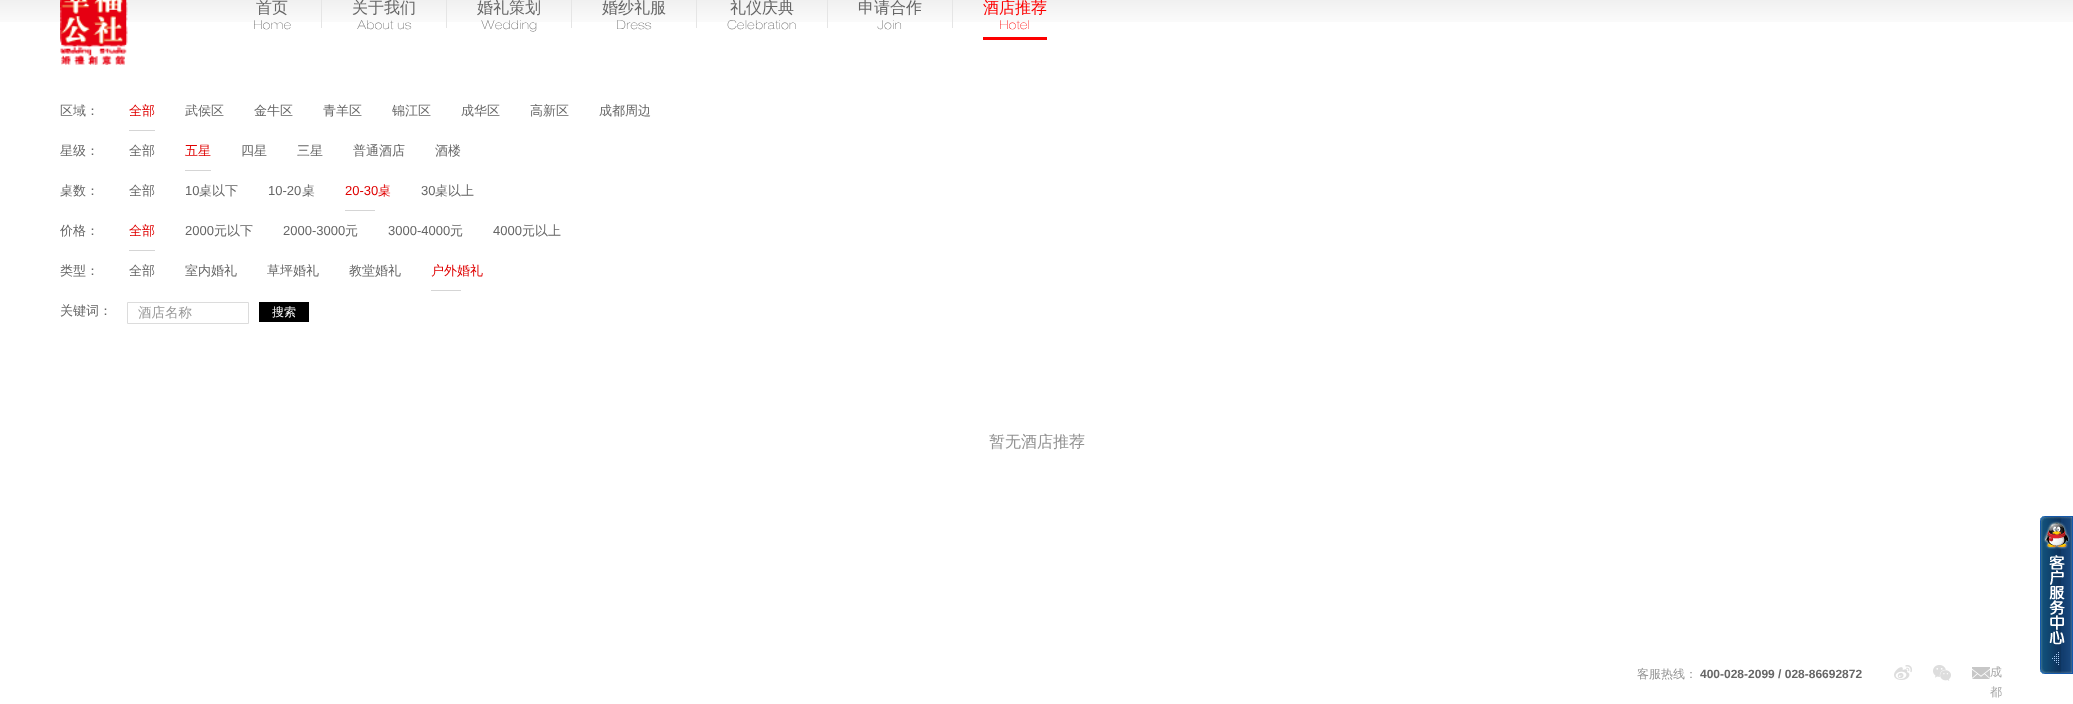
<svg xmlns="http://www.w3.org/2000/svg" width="2073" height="704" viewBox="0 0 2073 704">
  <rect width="100%" height="100%" fill="#fff"/>
  <image x="0" y="0" width="2073" height="22" href="img/1.png"/>
  <image x="60" y="0" width="68" height="65" href="img/2.png"/>
  <path d="M321 0h1v28H321z" fill="#e5e5e5"/>
  <path d="M446 0h1v28H446z" fill="#e5e5e5"/>
  <path d="M571 0h1v28H571z" fill="#e5e5e5"/>
  <path d="M696 0h1v28H696z" fill="#e5e5e5"/>
  <path d="M827 0h1v28H827z" fill="#e5e5e5"/>
  <path d="M952 0h1v28H952z" fill="#e5e5e5"/>
  <path d="M983 37h64v3H983z" fill="#fd0000"/>
  <path d="M129 130h26v1H129z" fill="#d5d5d5"/>
  <path d="M185 170h26v1H185z" fill="#d5d5d5"/>
  <path d="M345 210h30v1H345z" fill="#d5d5d5"/>
  <path d="M129 250h26v1H129z" fill="#d5d5d5"/>
  <path d="M431 290h30v1H431z" fill="#d5d5d5"/>
  <path d="M127.5 302.5h121v21H127.5z" fill="none" stroke="#dcdcdc"/>
  <path d="M259 302h50v20H259z" fill="#000"/>
  <image x="1894" y="665" width="18" height="15" href="img/3.png"/>
  <image x="1933" y="665" width="18" height="16" href="img/4.png"/>
  <image x="1972" y="667" width="18" height="12" href="img/5.png"/>
  <image x="2040" y="516" width="33" height="158" href="img/6.png"/>
  <text x="256" y="13" font-family="WenQuanYi Zen Hei" font-size="16" font-weight="500" fill="#666">首页</text>
  <text x="253" y="29" font-family="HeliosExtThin" font-size="12" font-weight="100" fill="#666">Home</text>
  <text x="352" y="13" font-family="WenQuanYi Zen Hei" font-size="16" font-weight="500" fill="#666">关于我们</text>
  <text x="357" y="29" font-family="HeliosExtThin" font-size="12" font-weight="100" fill="#666">About us</text>
  <text x="477" y="13" font-family="WenQuanYi Zen Hei" font-size="16" font-weight="500" fill="#666">婚礼策划</text>
  <text x="481" y="29" font-family="HeliosExtThin" font-size="12" font-weight="100" fill="#666">Wedding</text>
  <text x="602" y="13" font-family="WenQuanYi Zen Hei" font-size="16" font-weight="500" fill="#666">婚纱礼服</text>
  <text x="616" y="29" font-family="HeliosExtThin" font-size="12" font-weight="100" fill="#666">Dress</text>
  <text x="730" y="13" font-family="WenQuanYi Zen Hei" font-size="16" font-weight="500" fill="#666">礼仪庆典</text>
  <text x="727" y="29" font-family="HeliosExtThin" font-size="12" font-weight="100" fill="#666">Celebration</text>
  <text x="858" y="13" font-family="WenQuanYi Zen Hei" font-size="16" font-weight="500" fill="#666">申请合作</text>
  <text x="877" y="29" font-family="HeliosExtThin" font-size="12" font-weight="100" fill="#666">Join</text>
  <text x="983" y="13" font-family="WenQuanYi Zen Hei" font-size="16" font-weight="500" fill="#fd0000">酒店推荐</text>
  <text x="999" y="29" font-family="HeliosExtThin" font-size="12" font-weight="100" fill="#fd0000">Hotel</text>
  <text x="60" y="115" font-family="WenQuanYi Zen Hei" font-size="13" font-weight="500" fill="#666">区域：</text>
  <text x="129" y="115" font-family="WenQuanYi Zen Hei" font-size="13" font-weight="500" fill="#df0000">全部</text>
  <g font-family="WenQuanYi Zen Hei" font-size="13" font-weight="500" fill="#666">
    <text x="185" y="115">武侯区</text>
    <text x="254" y="115">金牛区</text>
    <text x="323" y="115">青羊区</text>
    <text x="392" y="115">锦江区</text>
    <text x="461" y="115">成华区</text>
    <text x="530" y="115">高新区</text>
    <text x="599" y="115">成都周边</text>
    <text x="60" y="155">星级：</text>
    <text x="129" y="155">全部</text>
  </g>
  <text x="185" y="155" font-family="WenQuanYi Zen Hei" font-size="13" font-weight="500" fill="#df0000">五星</text>
  <g font-family="WenQuanYi Zen Hei" font-size="13" font-weight="500" fill="#666">
    <text x="241" y="155">四星</text>
    <text x="297" y="155">三星</text>
    <text x="353" y="155">普通酒店</text>
    <text x="435" y="155">酒楼</text>
    <text x="60" y="195">桌数：</text>
    <text x="129" y="195">全部</text>
  </g>
  <text x="185" y="195" font-family="Liberation Sans" font-size="13" fill="#666">10</text>
  <text x="199" y="195" font-family="WenQuanYi Zen Hei" font-size="13" font-weight="500" fill="#666">桌以下</text>
  <text x="268" y="195" font-family="Liberation Sans" font-size="13" fill="#666">10-20</text>
  <text x="302" y="195" font-family="WenQuanYi Zen Hei" font-size="13" font-weight="500" fill="#666">桌</text>
  <text x="345" y="195" font-family="Liberation Sans" font-size="13" fill="#df0000">20-30</text>
  <text x="378" y="195" font-family="WenQuanYi Zen Hei" font-size="13" font-weight="500" fill="#df0000">桌</text>
  <text x="421" y="195" font-family="Liberation Sans" font-size="13" fill="#666">30</text>
  <g font-family="WenQuanYi Zen Hei" font-size="13" font-weight="500" fill="#666">
    <text x="435" y="195">桌以上</text>
    <text x="60" y="235">价格：</text>
  </g>
  <text x="129" y="235" font-family="WenQuanYi Zen Hei" font-size="13" font-weight="500" fill="#df0000">全部</text>
  <text x="185" y="235" font-family="Liberation Sans" font-size="13" fill="#666">2000</text>
  <text x="214" y="235" font-family="WenQuanYi Zen Hei" font-size="13" font-weight="500" fill="#666">元以下</text>
  <text x="283" y="235" font-family="Liberation Sans" font-size="13" fill="#666">2000-3000</text>
  <text x="345" y="235" font-family="WenQuanYi Zen Hei" font-size="13" font-weight="500" fill="#666">元</text>
  <text x="388" y="235" font-family="Liberation Sans" font-size="13" fill="#666">3000-4000</text>
  <text x="450" y="235" font-family="WenQuanYi Zen Hei" font-size="13" font-weight="500" fill="#666">元</text>
  <text x="493" y="235" font-family="Liberation Sans" font-size="13" fill="#666">4000</text>
  <g font-family="WenQuanYi Zen Hei" font-size="13" font-weight="500" fill="#666">
    <text x="522" y="235">元以上</text>
    <text x="60" y="275">类型：</text>
    <text x="129" y="275">全部</text>
    <text x="185" y="275">室内婚礼</text>
    <text x="267" y="275">草坪婚礼</text>
    <text x="349" y="275">教堂婚礼</text>
  </g>
  <text x="431" y="275" font-family="WenQuanYi Zen Hei" font-size="13" font-weight="500" fill="#df0000">户外婚礼</text>
  <text x="60" y="315" font-family="WenQuanYi Zen Hei" font-size="13" font-weight="500" fill="#666">关键词：</text>
  <text x="138" y="317" font-family="WenQuanYi Zen Hei" font-size="13.5" font-weight="500" fill="#999">酒店名称</text>
  <text x="272" y="316" font-family="WenQuanYi Zen Hei" font-size="12" font-weight="500" fill="#f4f4f4">搜索</text>
  <text x="989" y="447" font-family="WenQuanYi Zen Hei" font-size="16" font-weight="500" fill="#929292">暂无酒店推荐</text>
  <text x="1637" y="678" font-family="WenQuanYi Zen Hei" font-size="12" font-weight="500" fill="#929292">客服热线：</text>
  <text x="1700" y="678" font-family="Liberation Sans" font-size="12" font-weight="bold" fill="#666">400-028-2099 / 028-86692872</text>
  <g font-family="WenQuanYi Zen Hei" font-size="12" font-weight="500" fill="#a9a9a9">
    <text x="1990" y="676">成</text>
    <text x="1990" y="696">都</text>
  </g>
</svg>
